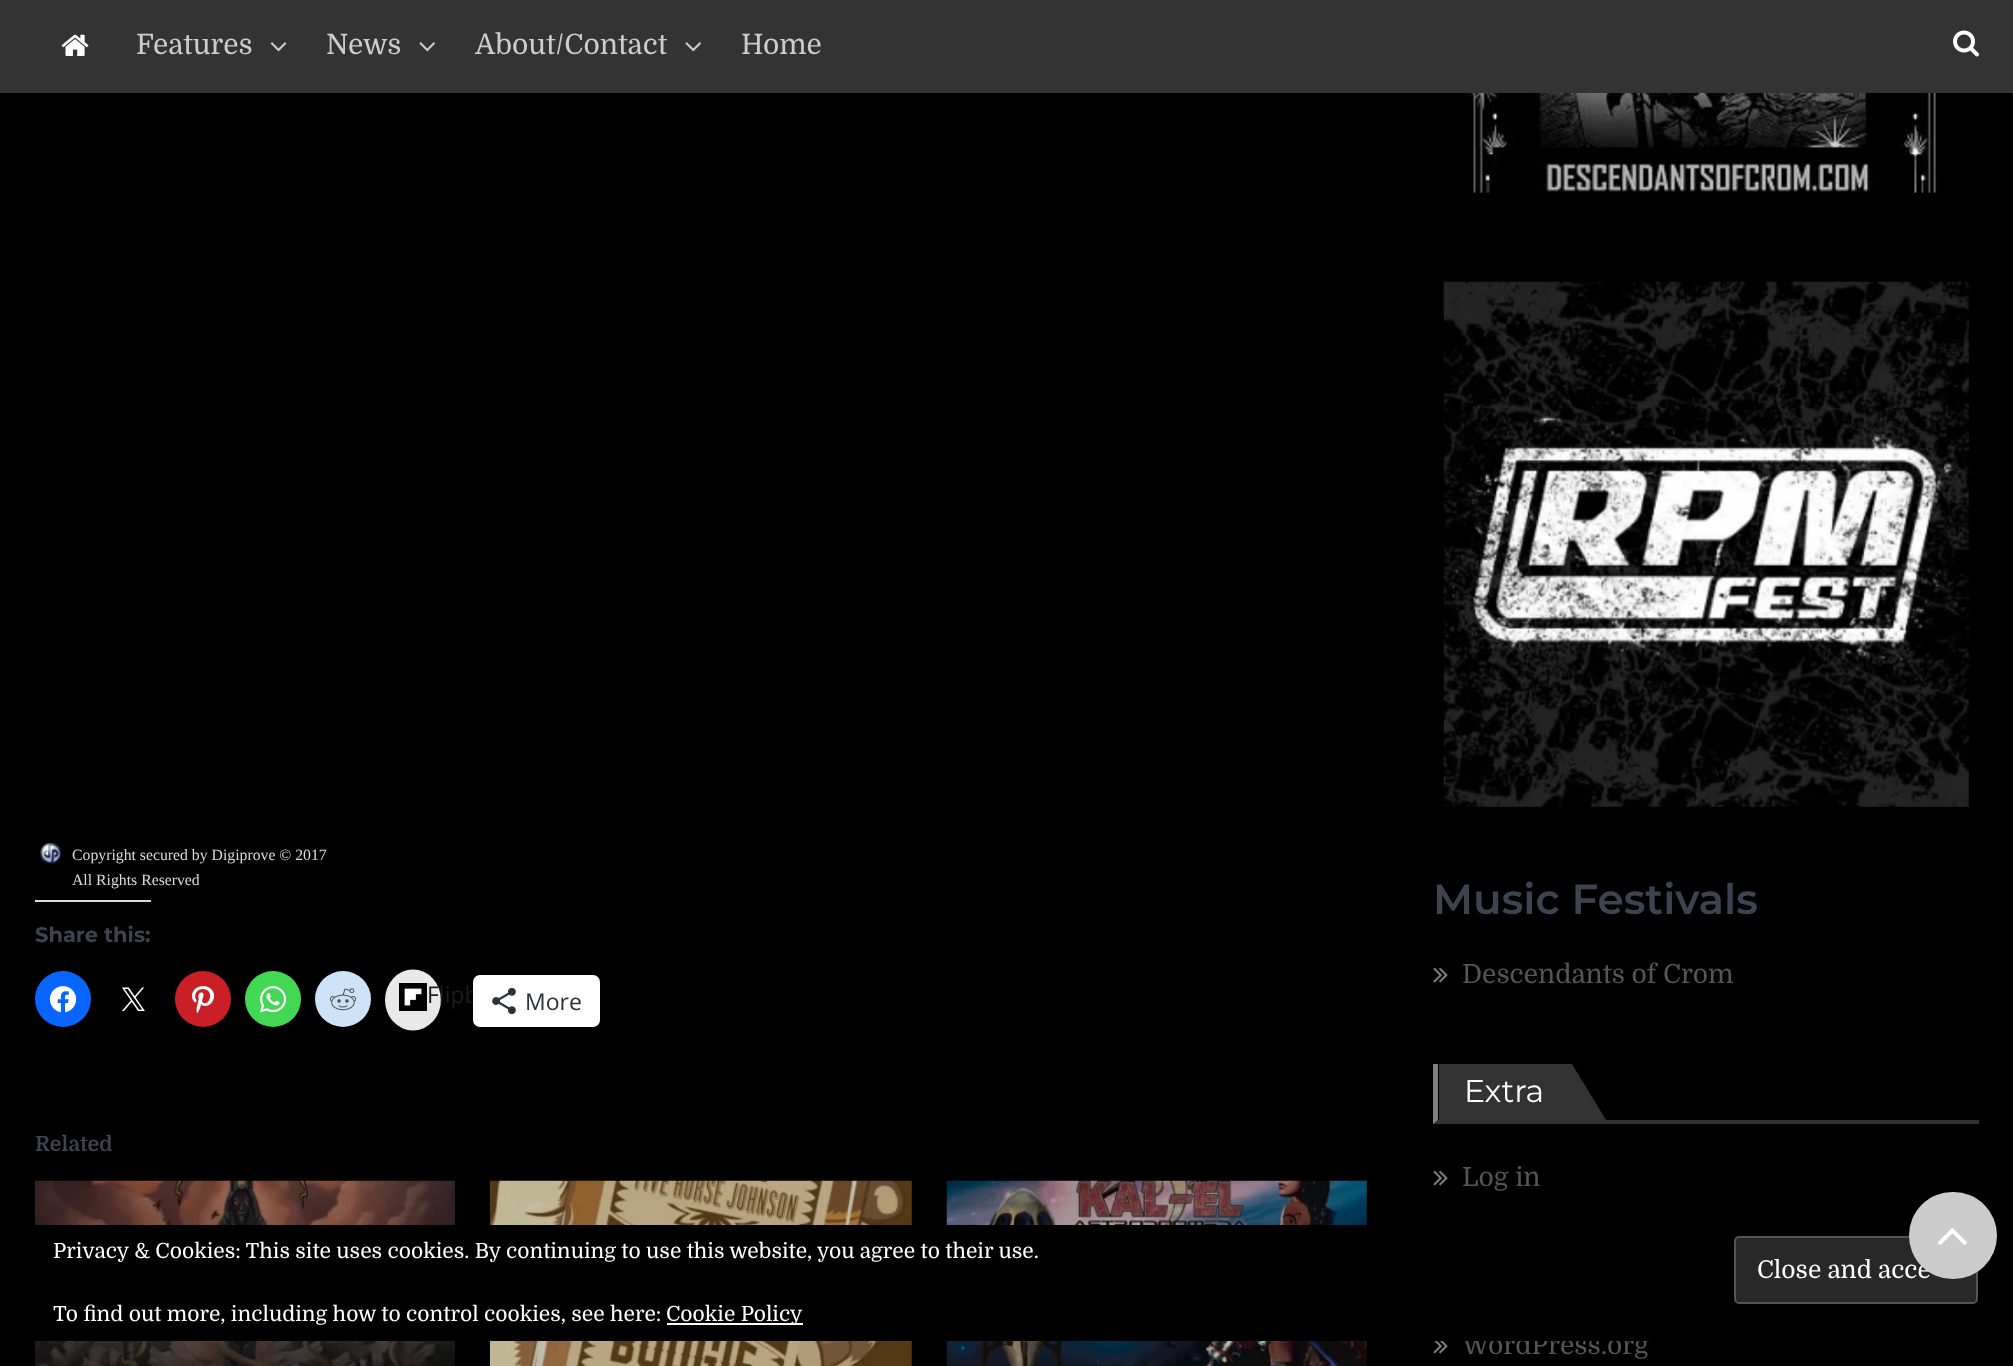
<svg xmlns="http://www.w3.org/2000/svg" width="2013" height="1366" viewBox="0 0 2013 1366">
  <rect width="100%" height="100%" fill="#000"/>
  <path d="M0 0h2013v93H0z" fill="#333"/>
  <image x="61" y="34" width="28" height="22" href="img/1.png"/>
  <image x="270" y="42" width="17" height="10" href="img/2.png"/>
  <image x="419" y="42" width="16" height="10" href="img/3.png"/>
  <image x="685" y="42" width="16" height="10" href="img/3.png"/>
  <image x="1953" y="30" width="26" height="27" href="img/4.png"/>
  <image x="40" y="843" width="22" height="21" href="img/5.png"/>
  <path d="M35 900h116v2H35z" fill="#dcdcde"/>
  <circle cx="63" cy="999" r="28" fill="#0866ff"/>
  <image x="49" y="986" width="28" height="27" href="img/6.png"/>
  <image x="122" y="987" width="23" height="25" href="img/7.png"/>
  <circle cx="203" cy="999" r="28" fill="#ca1f27"/>
  <image x="192" y="986" width="22" height="28" href="img/8.png"/>
  <circle cx="273" cy="999" r="28" fill="#43d854"/>
  <image x="260" y="986" width="26" height="27" href="img/9.png"/>
  <circle cx="343" cy="999" r="28" fill="#cee3f8"/>
  <image x="329" y="988" width="28" height="23" href="img/10.png"/>
  <ellipse cx="413" cy="1000" rx="28" ry="30.5" fill="#e9e9e9"/>
  <image x="399" y="983" width="28" height="28" href="img/11.png"/>
  <image x="35" y="1180" width="420" height="186" href="img/13.png"/>
  <image x="490" y="1180" width="422" height="186" href="img/14.png"/>
  <image x="946" y="1180" width="421" height="186" href="img/15.png"/>
  <image x="1465" y="93" width="475" height="100" href="img/16.png"/>
  <image x="1443" y="281" width="526" height="526" href="img/17.png"/>
  <image x="1433" y="967" width="15" height="16" href="img/18.png"/>
  <path d="M1979 1124H1433L1438 1120H1979Z" fill="#333"/>
  <path d="M1433 1124V1064H1438V1120Z" fill="#7f7f7f"/>
  <path d="M1439 1064h133v56H1439z" fill="#333"/>
  <path d="M1606 1120H1572V1064Z" fill="#333"/>
  <image x="1433" y="1170" width="15" height="16" href="img/18.png"/>
  <image x="1433" y="1341" width="15" height="13" href="img/19.png"/>
  <rect x="1735" y="1237" width="242" height="66" rx="4" fill="#282828" stroke="#535353" stroke-width="2"/>
  <g font-family="Domine" font-size="28" fill="#ccc">
    <text x="136" y="54">Features</text>
    <text x="326" y="54">News</text>
    <text x="475" y="54">About/Contact</text>
    <text x="741" y="54">Home</text>
  </g>
  <g font-family="Liberation Serif" font-size="15.75" fill="#dbdbdb">
    <text x="72" y="860">Copyright secured by Digiprove © 2017</text>
    <text x="72" y="885">All Rights Reserved</text>
  </g>
  <text x="35" y="942" font-family="Montserrat" font-size="21" font-weight="bold" fill="#3d4351">Share this:</text>
  <text x="427" y="1003" font-family="Open Sans" font-size="23" fill="#1d1d1d">Flipb</text>
  <rect x="472" y="974" width="129" height="54" rx="8" fill="none" stroke="#0000001f" stroke-width="2"/>
  <rect x="473" y="975" width="127" height="52" rx="7" fill="#fff"/>
  <image x="492" y="987" width="24" height="28" href="img/12.png"/>
  <text x="525" y="1010" font-family="Open Sans" font-size="23" fill="#2c3338">More</text>
  <text x="35" y="1151" font-family="Domine" font-size="21" font-weight="bold" fill="#3d4351">Related</text>
  <text x="1433" y="914" font-family="Montserrat" font-size="42" font-weight="600" fill="#3d4351">Music Festivals</text>
  <text x="1462" y="983" font-family="Domine" font-size="26.25" fill="#555">Descendants of Crom</text>
  <text x="1464" y="1102" font-family="Montserrat" font-size="31.5" fill="#fff">Extra</text>
  <g font-family="Domine" font-size="26.25" fill="#555">
    <text x="1462" y="1186">Log in</text>
    <text x="1462" y="1354">WordPress.org</text>
  </g>
  <path d="M35 1225h1615v116H35z" fill="#000"/>
  <text x="53" y="1258" font-family="Domine" font-size="21" fill="#fff">Privacy &amp; Cookies: This site uses cookies. By continuing to use this website, you agree to their use.</text>
  <text x="1757" y="1278" font-family="Domine" font-size="24.5" fill="#fff">Close and acce</text>
  <rect x="1909" y="1192" width="88" height="87" rx="43.5" fill="#ccc"/>
  <image x="1937" y="1228" width="30" height="17" href="img/20.png"/>
  <text x="53" y="1321" font-family="Domine" font-size="21" fill="#fff">To find out more, including how to control cookies, see here:</text>
  <path d="M667 1323h136v2H667z" fill="#fff"/>
  <text x="666" y="1321" font-family="Domine" font-size="21" fill="#fff">Cookie Policy</text>
</svg>
